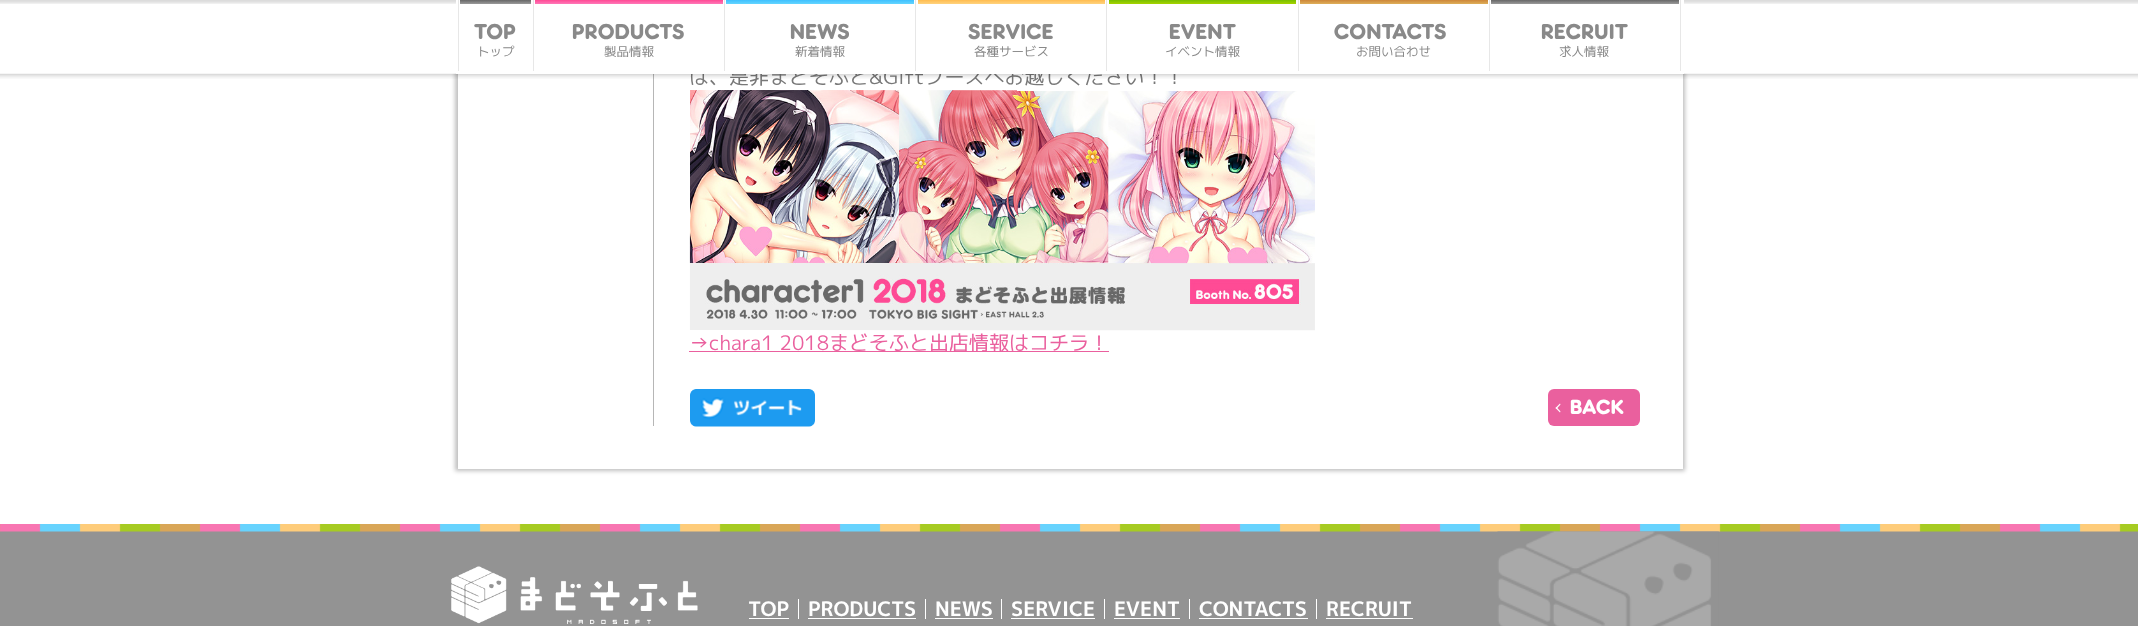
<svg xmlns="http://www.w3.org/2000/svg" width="2138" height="626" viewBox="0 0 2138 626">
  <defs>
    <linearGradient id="g1" gradientUnits="userSpaceOnUse" x1="1585" y1="0" x2="1585" y2="3.8"><stop offset="0" stop-color="#676767"/><stop offset="1" stop-color="#989898"/></linearGradient>
    <linearGradient id="g2" gradientUnits="userSpaceOnUse" x1="1394" y1="0" x2="1394" y2="3.8"><stop offset="0" stop-color="#cd8638"/><stop offset="1" stop-color="#ddad58"/></linearGradient>
    <linearGradient id="g3" gradientUnits="userSpaceOnUse" x1="1203" y1="0" x2="1203" y2="3.8"><stop offset="0" stop-color="#78be00"/><stop offset="1" stop-color="#a4d300"/></linearGradient>
    <linearGradient id="g4" gradientUnits="userSpaceOnUse" x1="1011" y1="0" x2="1011" y2="3.8"><stop offset="0" stop-color="#ffbc4f"/><stop offset="1" stop-color="#ffd27c"/></linearGradient>
    <linearGradient id="g5" gradientUnits="userSpaceOnUse" x1="820" y1="0" x2="820" y2="3.8"><stop offset="0" stop-color="#3ec0ff"/><stop offset="1" stop-color="#62d4ff"/></linearGradient>
    <linearGradient id="g6" gradientUnits="userSpaceOnUse" x1="629" y1="0" x2="629" y2="3.8"><stop offset="0" stop-color="#ff4a94"/><stop offset="1" stop-color="#ff75b7"/></linearGradient>
    <linearGradient id="g7" gradientUnits="userSpaceOnUse" x1="496" y1="0" x2="496" y2="3.8"><stop offset="0" stop-color="#676767"/><stop offset="1" stop-color="#989898"/></linearGradient>
  </defs>
  <rect width="100%" height="100%" fill="#fff"/>
  <path d="M455 -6h1230v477H455z" fill="#00000040" filter="blur(2px)"/>
  <path d="M458 74h1225v395H458z" fill="#fff"/>
  <path d="M653 74h1v352H653z" fill="#b6b6b6"/>
  <image x="689" y="90" width="626" height="241" href="img/2.png"/>
  <path d="M689 351h420v1H689z" fill="#ea609e"/>
  <image x="690" y="389" width="125" height="38" href="img/3.png"/>
  <rect x="1548" y="389" width="92" height="37" rx="6" fill="#ea609e"/>
  <path d="M1560 412.5L1555.5 408L1556.5 407L1560.5 411.5Z" fill="#fff"/>
  <path d="M1556.5 409L1555.5 408L1560 403.5L1560.5 404.5Z" fill="#fff"/>
  <path d="M0 531h2138v95H0z" fill="#939393"/>
  <image x="0" y="524" width="2138" height="8" href="img/4.png"/>
  <image x="1497" y="531" width="222" height="95" href="img/5.png"/>
  <image x="451" y="566" width="247" height="58" href="img/6.png"/>
  <path d="M749 618h40v1H749z" fill="#fff"/>
  <path d="M798 599h1v20H798z" fill="#fff"/>
  <path d="M808 618h108v1H808z" fill="#fff"/>
  <path d="M925 599h1v20H925z" fill="#fff"/>
  <path d="M935 618h58v1H935z" fill="#fff"/>
  <path d="M1001 599h1v20H1001z" fill="#fff"/>
  <path d="M1011 618h84v1H1011z" fill="#fff"/>
  <path d="M1104 599h1v20H1104z" fill="#fff"/>
  <path d="M1114 618h66v1H1114z" fill="#fff"/>
  <path d="M1189 599h1v20H1189z" fill="#fff"/>
  <path d="M1199 618h109v1H1199z" fill="#fff"/>
  <path d="M1316 599h1v20H1316z" fill="#fff"/>
  <path d="M1326 618h87v1H1326z" fill="#fff"/>
  <text x="689" y="84" font-family="'M PLUS 1p'" font-size="20" fill="#787878">は、是非まどそふと&amp;Giftブースへお越しください！！</text>
  <image x="0" y="0" width="2138" height="79" href="img/1.png"/>
  <path d="M456 0h1228v74H456z" fill="#fff"/>
  <text x="1559" y="56" font-family="'M PLUS 1p'" font-size="12.5" fill="#898989">求人情報</text>
  <text x="1541" y="39" font-family="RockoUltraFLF" font-size="20" font-weight="500" letter-spacing="0.5" fill="#898989">RECRUIT</text>
  <path d="M1491 0h188v4H1491z" fill="url(#g1)"/>
  <text x="1356" y="56" font-family="'M PLUS 1p'" font-size="12.5" fill="#898989">お問い合わせ</text>
  <text x="1334" y="39" font-family="RockoUltraFLF" font-size="20" font-weight="500" letter-spacing="0.5" fill="#898989">CONTACTS</text>
  <path d="M1300 0h188v4H1300z" fill="url(#g2)"/>
  <text x="1165" y="56" font-family="'M PLUS 1p'" font-size="12.5" fill="#898989">イベント情報</text>
  <text x="1169" y="39" font-family="RockoUltraFLF" font-size="20" font-weight="500" letter-spacing="0.5" fill="#898989">EVENT</text>
  <path d="M1109 0h187v4H1109z" fill="url(#g3)"/>
  <text x="974" y="56" font-family="'M PLUS 1p'" font-size="12.5" fill="#898989">各種サービス</text>
  <text x="968" y="39" font-family="RockoUltraFLF" font-size="20" font-weight="500" letter-spacing="0.5" fill="#898989">SERVICE</text>
  <path d="M918 0h187v4H918z" fill="url(#g4)"/>
  <text x="795" y="56" font-family="'M PLUS 1p'" font-size="12.5" fill="#898989">新着情報</text>
  <text x="790" y="39" font-family="RockoUltraFLF" font-size="20" font-weight="500" letter-spacing="0.5" fill="#898989">NEWS</text>
  <path d="M726 0h188v4H726z" fill="url(#g5)"/>
  <text x="604" y="56" font-family="'M PLUS 1p'" font-size="12.5" fill="#898989">製品情報</text>
  <text x="572" y="39" font-family="RockoUltraFLF" font-size="20" font-weight="500" letter-spacing="0.5" fill="#898989">PRODUCTS</text>
  <path d="M535 0h188v4H535z" fill="url(#g6)"/>
  <text x="477" y="56" font-family="'M PLUS 1p'" font-size="12.5" fill="#898989">トップ</text>
  <text x="474" y="39" font-family="RockoUltraFLF" font-size="20" font-weight="500" letter-spacing="0.5" fill="#898989">TOP</text>
  <path d="M460 0h71v4H460z" fill="url(#g7)"/>
  <path d="M1680 0h1v71H1680z" fill="#e7e7e7"/>
  <path d="M1489 0h1v71H1489z" fill="#e7e7e7"/>
  <path d="M1298 0h1v71H1298z" fill="#e7e7e7"/>
  <path d="M1106 0h1v71H1106z" fill="#e7e7e7"/>
  <path d="M915 0h1v71H915z" fill="#e7e7e7"/>
  <path d="M724 0h1v71H724z" fill="#e7e7e7"/>
  <path d="M533 0h1v71H533z" fill="#e7e7e7"/>
  <path d="M458 0h1v71H458z" fill="#e7e7e7"/>
  <text x="689" y="350" font-family="'M PLUS 1p'" font-size="20" fill="#ea609e">→chara1 2018まどそふと出店情報はコチラ！</text>
  <text x="1570" y="414" font-family="RockoUltraFLF" font-size="19" font-weight="500" letter-spacing="0.5" fill="#fff">BACK</text>
  <g font-family="'M PLUS 1p'" font-size="20" font-weight="bold" fill="#fff">
    <text x="748" y="616">TOP</text>
    <text x="808" y="616">PRODUCTS</text>
    <text x="935" y="616">NEWS</text>
    <text x="1011" y="616">SERVICE</text>
    <text x="1114" y="616">EVENT</text>
    <text x="1199" y="616">CONTACTS</text>
    <text x="1326" y="616">RECRUIT</text>
  </g>
</svg>
